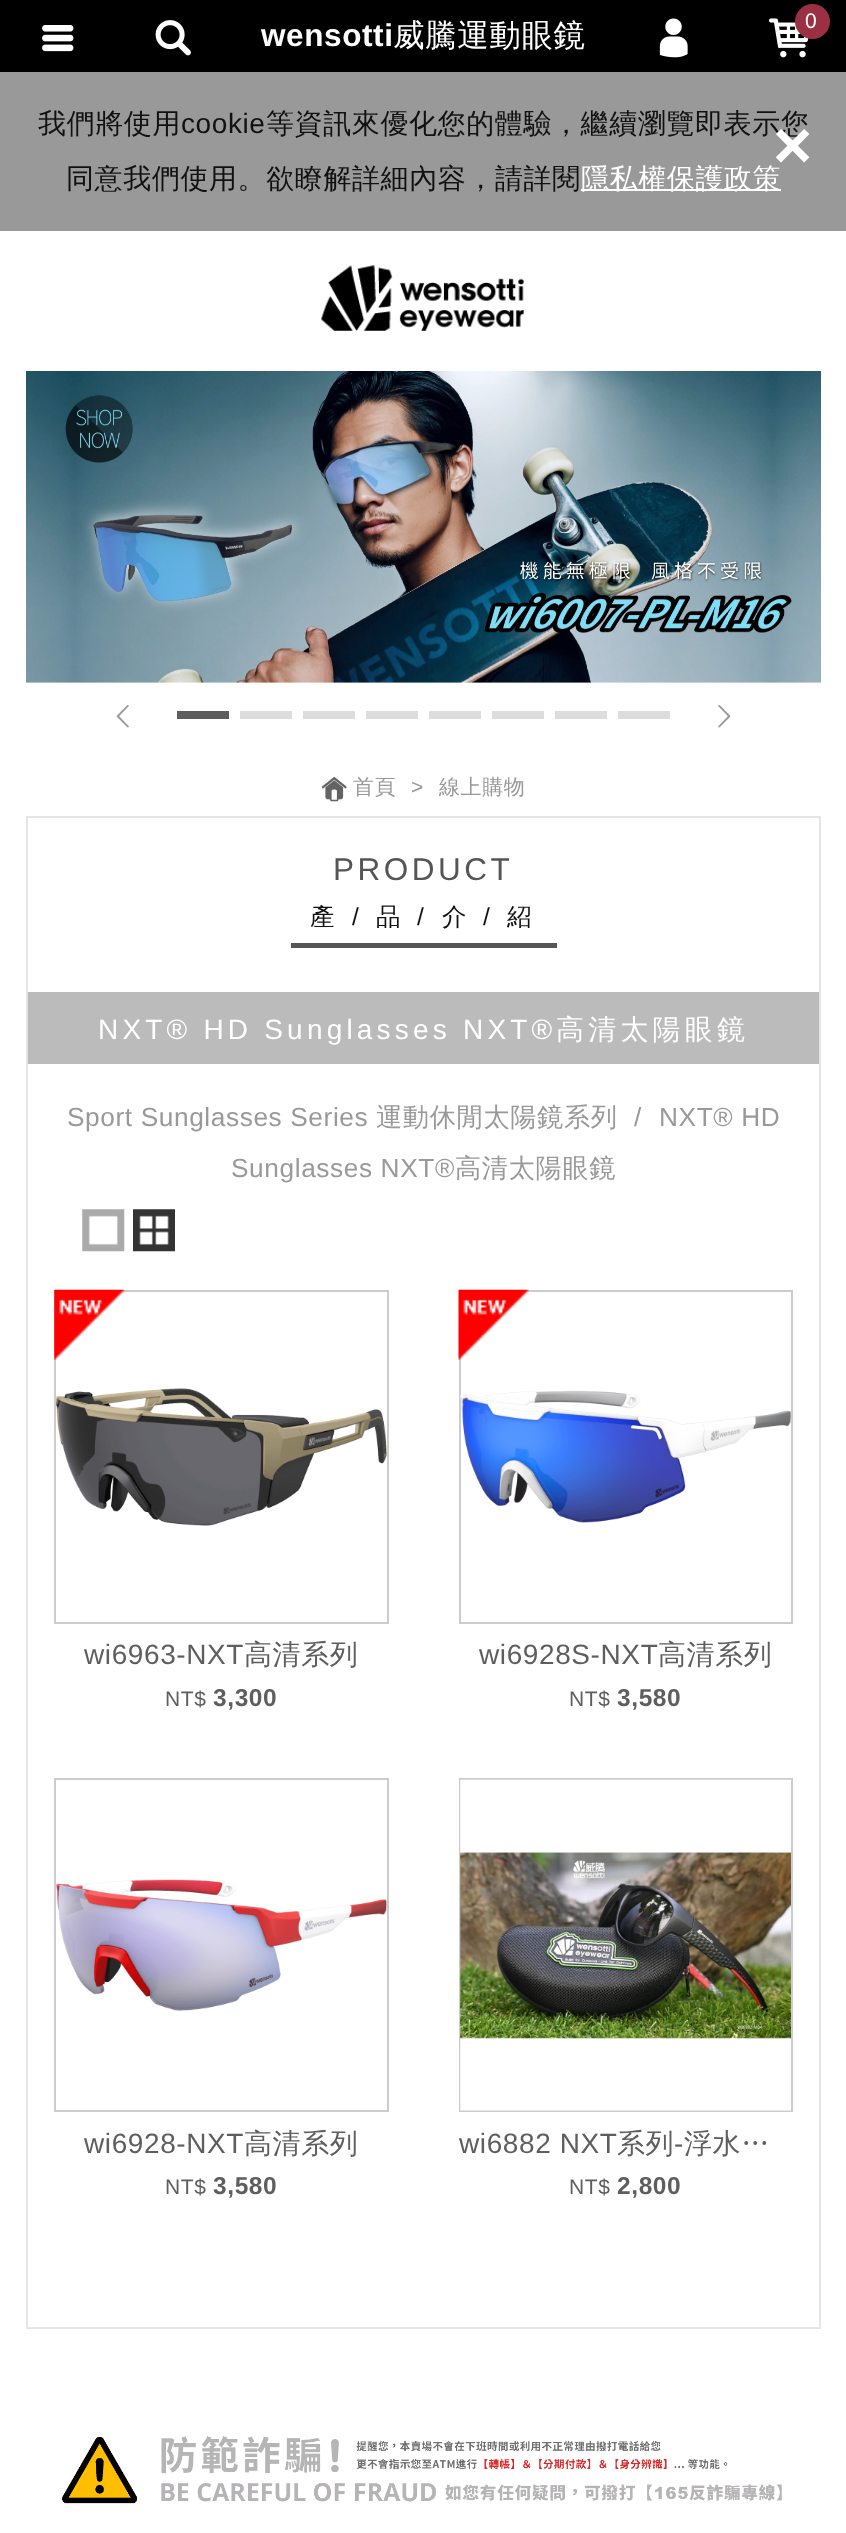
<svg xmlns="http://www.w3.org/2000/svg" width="846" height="2533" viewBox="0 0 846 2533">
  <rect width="100%" height="100%" fill="#fff"/>
  <path d="M0 70h846v2H0z" fill="#000"/>
  <path d="M0 0h846v70H0z" fill="#000"/>
  <image x="42" y="25" width="32" height="27" href="img/1.png"/>
  <image x="155" y="20" width="36" height="36" href="img/2.png"/>
  <image x="659" y="18" width="29" height="40" href="img/3.png"/>
  <image x="769" y="18" width="40" height="40" href="img/4.png"/>
  <circle cx="812.5" cy="21.5" r="17.5" fill="#9b3044"/>
  <path d="M0 72h846v159H0z" fill="#999"/>
  <path d="M581 189h200v2H581z" fill="#fff"/>
  <image x="321" y="265" width="203" height="66" href="img/5.png"/>
  <image x="26" y="371" width="795" height="312" href="img/6.png"/>
  <image x="116" y="705" width="13" height="23" href="img/7.png"/>
  <path d="M177 711h52v8H177z" fill="#5d5d5d"/>
  <path d="M240 711h52v8H240z" fill="#ddd"/>
  <path d="M303 711h52v8H303z" fill="#ddd"/>
  <path d="M366 711h52v8H366z" fill="#ddd"/>
  <path d="M429 711h52v8H429z" fill="#ddd"/>
  <path d="M492 711h52v8H492z" fill="#ddd"/>
  <path d="M555 711h52v8H555z" fill="#ddd"/>
  <path d="M618 711h52v8H618z" fill="#ddd"/>
  <image x="718" y="705" width="13" height="23" href="img/8.png"/>
  <path d="M27 817h793v1511H27z" fill="none" stroke="#e5e5e5" stroke-width="2"/>
  <image x="322" y="776" width="25" height="26" href="img/9.png"/>
  <path d="M291 943h266v5H291z" fill="#555"/>
  <path d="M28 992h791v72H28z" fill="#bbb"/>
  <image x="82" y="1209" width="43" height="43" href="img/10.png"/>
  <image x="133" y="1209" width="42" height="43" href="img/11.png"/>
  <path d="M55 1291h333v332H55z" fill="none" stroke="#ccc" stroke-width="2"/>
  <image x="54" y="1289" width="71" height="71" href="img/12.png"/>
  <image x="56" y="1388" width="331" height="138" href="img/13.png"/>
  <path d="M460 1291h332v332H460z" fill="none" stroke="#ccc" stroke-width="2"/>
  <image x="458" y="1289" width="71" height="71" href="img/14.png"/>
  <image x="460" y="1390" width="331" height="133" href="img/15.png"/>
  <path d="M55 1779h333v332H55z" fill="none" stroke="#ccc" stroke-width="2"/>
  <image x="56" y="1879" width="331" height="132" href="img/16.png"/>
  <path d="M460 1779h332v332H460z" fill="none" stroke="#ccc" stroke-width="2"/>
  <image x="460" y="1779" width="331" height="332" href="img/17.png"/>
  <image x="62" y="2436" width="720" height="68" href="img/18.png"/>
  <text x="261" y="46" font-family="Liberation Sans" font-size="31.5" font-weight="bold" letter-spacing="0.6" fill="#fff">wensotti</text>
  <text x="393" y="46" font-family="WenQuanYi Zen Hei" font-size="31.5" font-weight="500" letter-spacing="0.6" fill="#fff">威騰運動眼鏡</text>
  <text x="805" y="28" font-family="Liberation Sans" font-size="21" fill="#fff">0</text>
  <text x="38" y="133" font-family="WenQuanYi Zen Hei" font-size="28" font-weight="500" letter-spacing="0.6" fill="#111">我們將使用</text>
  <text x="181" y="133" font-family="Liberation Sans" font-size="28" letter-spacing="0.6" fill="#111">cookie</text>
  <g font-family="WenQuanYi Zen Hei" font-size="28" font-weight="500" letter-spacing="0.6" fill="#111">
    <text x="266" y="133">等資訊來優化您的體驗，繼續瀏覽即表示您</text>
    <text x="66" y="188">同意我們使用。欲瞭解詳細內容，請詳閱</text>
  </g>
  <text x="581" y="188" font-family="WenQuanYi Zen Hei" font-size="28" font-weight="500" letter-spacing="0.6" fill="#fff">隱私權保護政策</text>
  <text x="773" y="168" font-family="Liberation Sans" font-size="67" font-weight="bold" fill="#fff">×</text>
  <text x="353" y="794" font-family="WenQuanYi Zen Hei" font-size="21" font-weight="500" letter-spacing="0.6" fill="#999">首頁</text>
  <text x="411" y="794" font-family="Liberation Sans" font-size="21" letter-spacing="0.6" fill="#999">&gt;</text>
  <text x="439" y="794" font-family="WenQuanYi Zen Hei" font-size="21" font-weight="500" letter-spacing="0.6" fill="#999">線上購物</text>
  <text x="333" y="880" font-family="Liberation Sans" font-size="31.5" letter-spacing="3.5" fill="#555">PRODUCT</text>
  <text x="310" y="925" font-family="WenQuanYi Zen Hei" font-size="24.5" font-weight="500" letter-spacing="5" fill="#111">產</text>
  <text x="352" y="925" font-family="Liberation Sans" font-size="24.5" letter-spacing="5" fill="#111">/</text>
  <text x="376" y="925" font-family="WenQuanYi Zen Hei" font-size="24.5" font-weight="500" letter-spacing="5" fill="#111">品</text>
  <text x="417" y="925" font-family="Liberation Sans" font-size="24.5" letter-spacing="5" fill="#111">/</text>
  <text x="442" y="925" font-family="WenQuanYi Zen Hei" font-size="24.5" font-weight="500" letter-spacing="5" fill="#111">介</text>
  <text x="483" y="925" font-family="Liberation Sans" font-size="24.5" letter-spacing="5" fill="#111">/</text>
  <text x="507" y="925" font-family="WenQuanYi Zen Hei" font-size="24.5" font-weight="500" letter-spacing="5" fill="#111">紹</text>
  <text x="98" y="1039" font-family="Liberation Sans" font-size="28" letter-spacing="4.2" fill="#fff">NXT® HD Sunglasses NXT®</text>
  <text x="556" y="1039" font-family="WenQuanYi Zen Hei" font-size="28" font-weight="500" letter-spacing="4.2" fill="#fff">高清太陽眼鏡</text>
  <text x="67" y="1126" font-family="Liberation Sans" font-size="26.25" letter-spacing="0.6" fill="#999">Sport Sunglasses Series</text>
  <text x="376" y="1126" font-family="WenQuanYi Zen Hei" font-size="26.25" font-weight="500" letter-spacing="0.6" fill="#999">運動休閒太陽鏡系列</text>
  <g font-family="Liberation Sans" font-size="26.25" letter-spacing="0.6" fill="#999">
    <text x="634" y="1126">/</text>
    <text x="659" y="1126">NXT® HD</text>
    <text x="231" y="1177">Sunglasses NXT®</text>
  </g>
  <text x="455" y="1177" font-family="WenQuanYi Zen Hei" font-size="26.25" font-weight="500" letter-spacing="0.6" fill="#999">高清太陽眼鏡</text>
  <text x="84" y="1664" font-family="Liberation Sans" font-size="28" letter-spacing="0.6" fill="#5e5e5e">wi6963-NXT</text>
  <text x="244" y="1664" font-family="WenQuanYi Zen Hei" font-size="28" font-weight="500" letter-spacing="0.6" fill="#5e5e5e">高清系列</text>
  <text x="165" y="1706" font-family="Liberation Sans" font-size="21" letter-spacing="0.6" fill="#5e5e5e">NT$</text>
  <text x="213" y="1706" font-family="Liberation Sans" font-size="24.5" font-weight="bold" letter-spacing="0.6" fill="#5e5e5e">3,300</text>
  <text x="479" y="1664" font-family="Liberation Sans" font-size="28" letter-spacing="0.6" fill="#5e5e5e">wi6928S-NXT</text>
  <text x="658" y="1664" font-family="WenQuanYi Zen Hei" font-size="28" font-weight="500" letter-spacing="0.6" fill="#5e5e5e">高清系列</text>
  <text x="569" y="1706" font-family="Liberation Sans" font-size="21" letter-spacing="0.6" fill="#5e5e5e">NT$</text>
  <text x="617" y="1706" font-family="Liberation Sans" font-size="24.5" font-weight="bold" letter-spacing="0.6" fill="#5e5e5e">3,580</text>
  <text x="84" y="2153" font-family="Liberation Sans" font-size="28" letter-spacing="0.6" fill="#5e5e5e">wi6928-NXT</text>
  <text x="244" y="2153" font-family="WenQuanYi Zen Hei" font-size="28" font-weight="500" letter-spacing="0.6" fill="#5e5e5e">高清系列</text>
  <text x="165" y="2194" font-family="Liberation Sans" font-size="21" letter-spacing="0.6" fill="#5e5e5e">NT$</text>
  <text x="213" y="2194" font-family="Liberation Sans" font-size="24.5" font-weight="bold" letter-spacing="0.6" fill="#5e5e5e">3,580</text>
  <text x="459" y="2153" font-family="Liberation Sans" font-size="28" letter-spacing="0.6" fill="#5e5e5e">wi6882 NXT</text>
  <text x="617" y="2153" font-family="WenQuanYi Zen Hei" font-size="28" font-weight="500" letter-spacing="0.6" fill="#5e5e5e">系列</text>
  <text x="674" y="2153" font-family="Liberation Sans" font-size="28" letter-spacing="0.6" fill="#5e5e5e">-</text>
  <text x="684" y="2153" font-family="WenQuanYi Zen Hei" font-size="28" font-weight="500" letter-spacing="0.6" fill="#5e5e5e">浮水…</text>
  <text x="569" y="2194" font-family="Liberation Sans" font-size="21" letter-spacing="0.6" fill="#5e5e5e">NT$</text>
  <text x="617" y="2194" font-family="Liberation Sans" font-size="24.5" font-weight="bold" letter-spacing="0.6" fill="#5e5e5e">2,800</text>
</svg>
